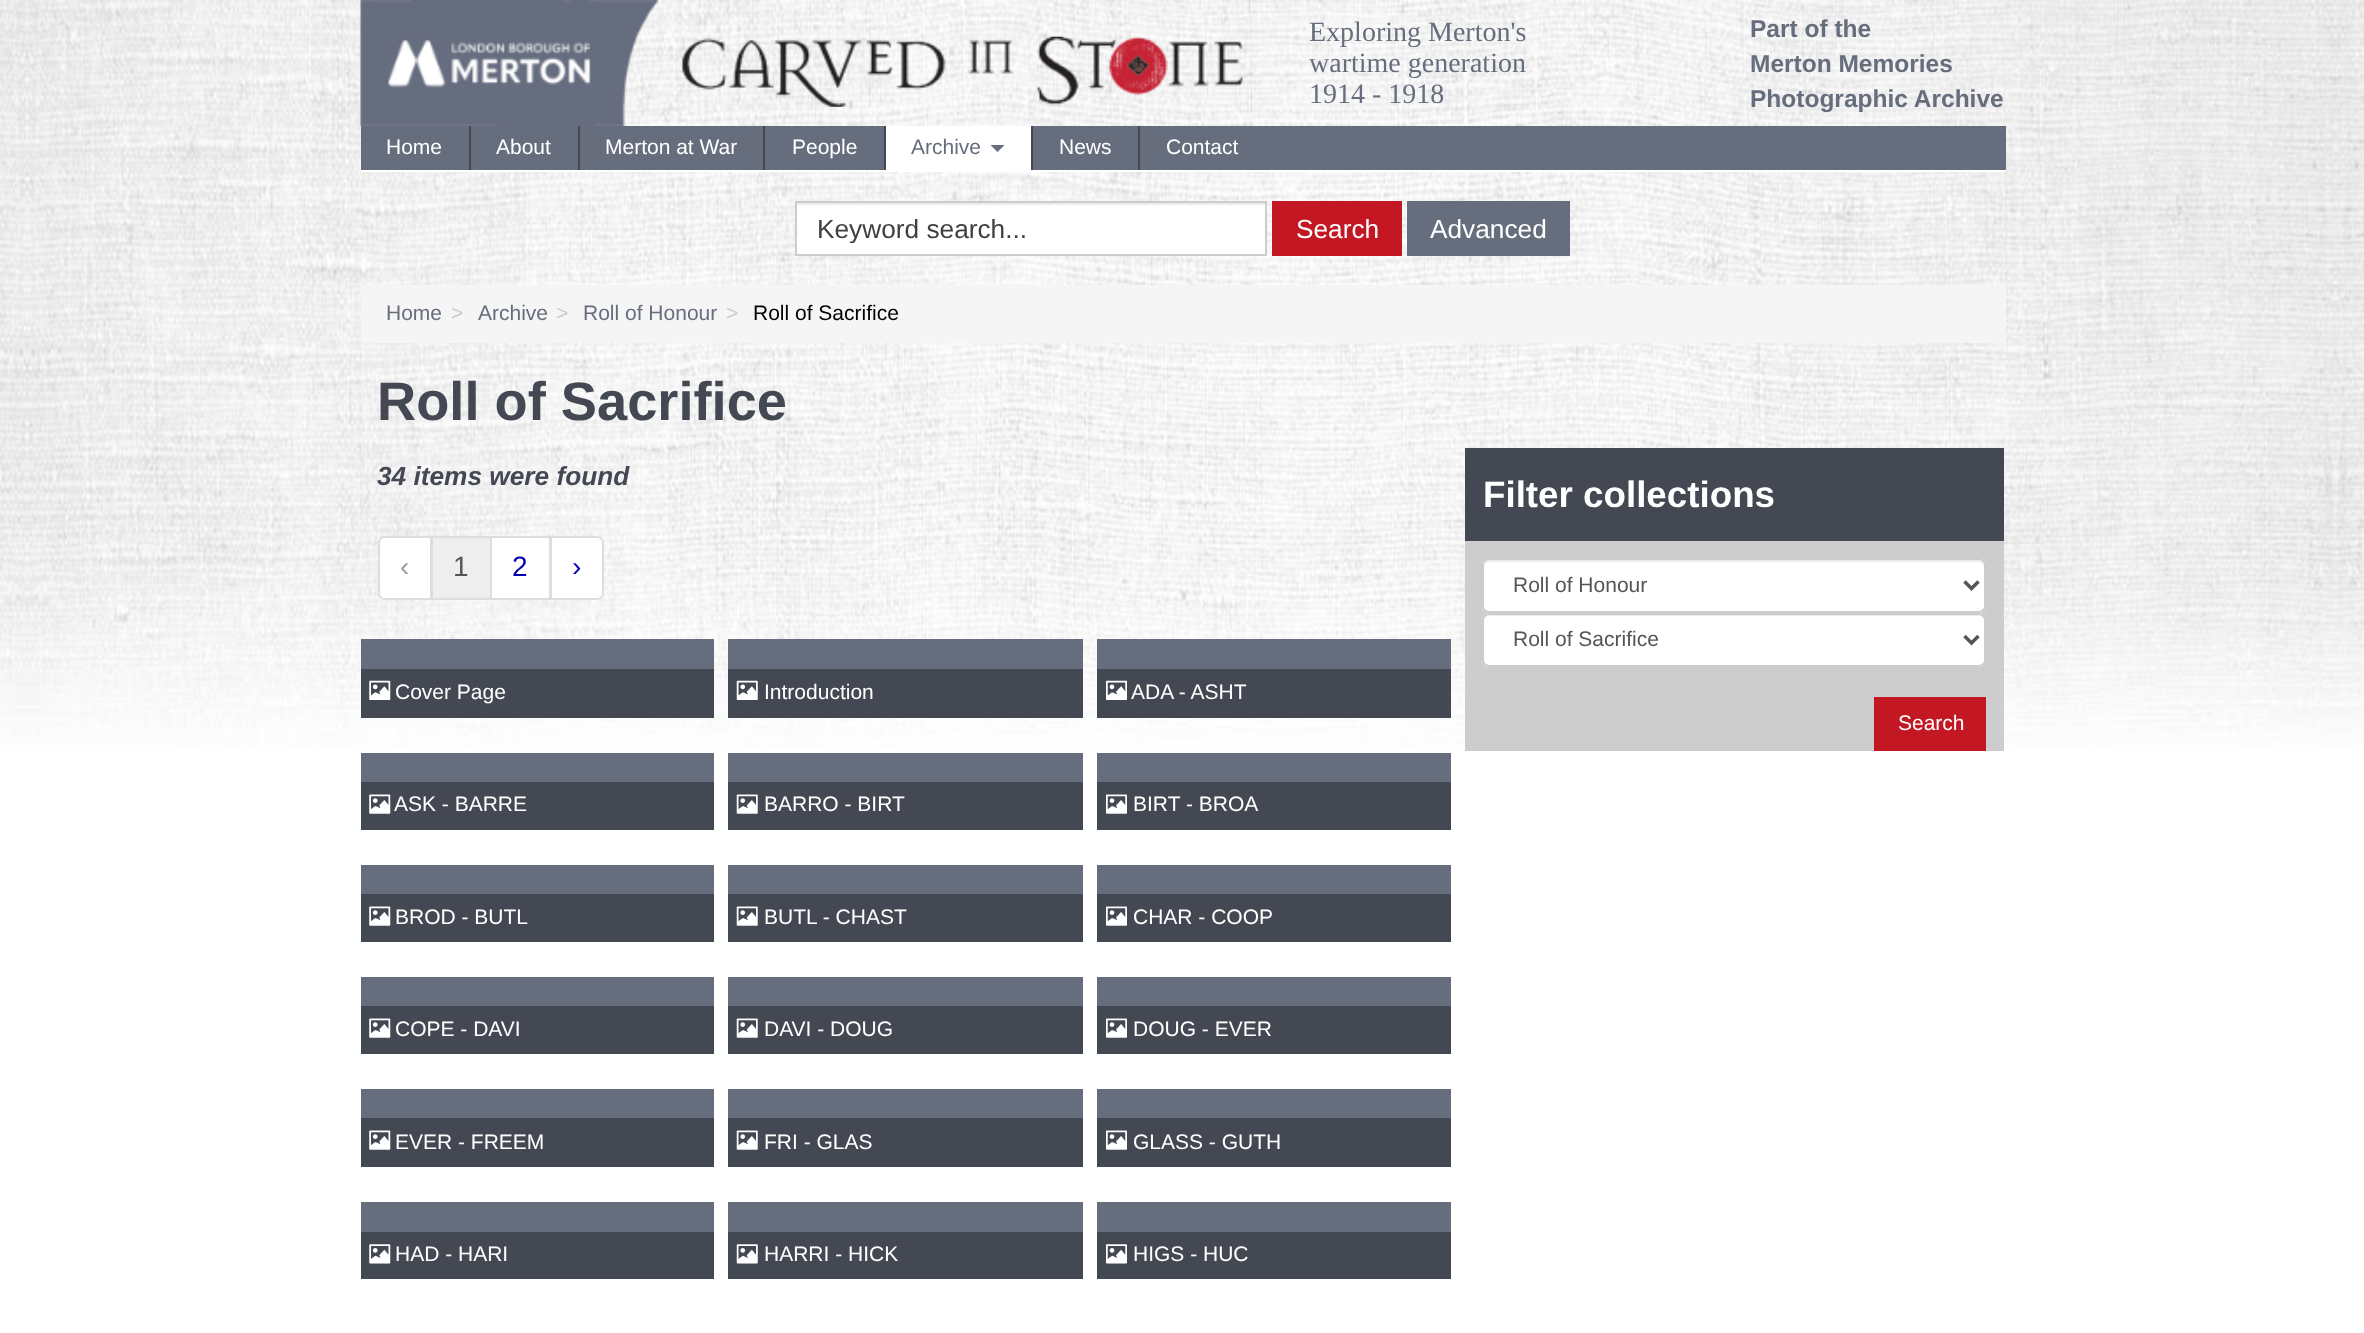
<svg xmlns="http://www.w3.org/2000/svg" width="2364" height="1333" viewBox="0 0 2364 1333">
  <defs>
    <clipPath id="clip1"><path d="M817 214h427v29H817z"/></clipPath>
  </defs>
  <rect width="100%" height="100%" fill="#fff"/>
  <image x="0" y="0" width="2364" height="750" href="img/1.png"/>
  <image x="360" y="0" width="298" height="126" href="img/2.png"/>
  <image x="682" y="36" width="561" height="71" href="img/3.png"/>
  <path d="M361 126h1645v44H361z" fill="#666d7c"/>
  <path d="M361 170h1645v2H361z" fill="#fff"/>
  <path d="M469 126h2v44H469z" fill="#434852"/>
  <path d="M578 126h2v44H578z" fill="#434852"/>
  <path d="M763 126h2v44H763z" fill="#434852"/>
  <path d="M884 126h2v44H884z" fill="#434852"/>
  <path d="M1031 126h2v44H1031z" fill="#434852"/>
  <path d="M886 126h145v44H886z" fill="#fff"/>
  <path d="M990.5 145H1004.5L997.5 152Z" fill="#666d7c"/>
  <path d="M1138 126h2v44H1138z" fill="#434852"/>
  <path d="M797 205h468v49H797z" fill="#fff"/>
  <path d="M796 203h469v2H796z" fill="#ececec"/>
  <path d="M796 202h470v53H796z" fill="none" stroke="#ccc" stroke-width="2"/>
  <path d="M1272 201h130v55H1272z" fill="#c31723"/>
  <path d="M1407 201h163v55H1407z" fill="#666d7c"/>
  <path d="M361 285h1645v58H361z" fill="#f5f5f5"/>
  <path d="M385 537H431V599H385C381.5 599 379 596.5 379 593V543C379 539.5 381.5 537 385 537Z" fill="#fff" stroke="#ddd" stroke-width="2"/>
  <path d="M491 537h59v62H491z" fill="#fff" stroke="#ddd" stroke-width="2"/>
  <path d="M432 537h59v62H432z" fill="#eee" stroke="#ddd" stroke-width="2"/>
  <path d="M551 537H597C600.5 537 603 539.5 603 543V593C603 596.5 600.5 599 597 599H551Z" fill="#fff" stroke="#ddd" stroke-width="2"/>
  <path d="M361 639h353v30H361z" fill="#666d7c"/>
  <path d="M361 669h353v49H361z" fill="#434852"/>
  <image x="369" y="680" width="22" height="20" href="img/4.png"/>
  <path d="M728 639h355v30H728z" fill="#666d7c"/>
  <path d="M728 669h355v49H728z" fill="#434852"/>
  <image x="736" y="680" width="22" height="20" href="img/5.png"/>
  <path d="M1097 639h354v30H1097z" fill="#666d7c"/>
  <path d="M1097 669h354v49H1097z" fill="#434852"/>
  <image x="1106" y="680" width="21" height="20" href="img/6.png"/>
  <path d="M361 753h353v29H361z" fill="#666d7c"/>
  <path d="M361 782h353v48H361z" fill="#434852"/>
  <image x="369" y="794" width="22" height="20" href="img/7.png"/>
  <path d="M728 753h355v29H728z" fill="#666d7c"/>
  <path d="M728 782h355v48H728z" fill="#434852"/>
  <image x="736" y="794" width="22" height="20" href="img/8.png"/>
  <path d="M1097 753h354v29H1097z" fill="#666d7c"/>
  <path d="M1097 782h354v48H1097z" fill="#434852"/>
  <image x="1106" y="794" width="21" height="20" href="img/9.png"/>
  <path d="M361 865h353v29H361z" fill="#666d7c"/>
  <path d="M361 894h353v48H361z" fill="#434852"/>
  <image x="369" y="906" width="22" height="20" href="img/7.png"/>
  <path d="M728 865h355v29H728z" fill="#666d7c"/>
  <path d="M728 894h355v48H728z" fill="#434852"/>
  <image x="736" y="906" width="22" height="20" href="img/8.png"/>
  <path d="M1097 865h354v29H1097z" fill="#666d7c"/>
  <path d="M1097 894h354v48H1097z" fill="#434852"/>
  <image x="1106" y="906" width="21" height="20" href="img/9.png"/>
  <path d="M361 977h353v29H361z" fill="#666d7c"/>
  <path d="M361 1006h353v48H361z" fill="#434852"/>
  <image x="369" y="1018" width="22" height="20" href="img/7.png"/>
  <path d="M728 977h355v29H728z" fill="#666d7c"/>
  <path d="M728 1006h355v48H728z" fill="#434852"/>
  <image x="736" y="1018" width="22" height="20" href="img/8.png"/>
  <path d="M1097 977h354v29H1097z" fill="#666d7c"/>
  <path d="M1097 1006h354v48H1097z" fill="#434852"/>
  <image x="1106" y="1018" width="21" height="20" href="img/9.png"/>
  <path d="M361 1089h353v29H361z" fill="#666d7c"/>
  <path d="M361 1118h353v49H361z" fill="#434852"/>
  <image x="369" y="1130" width="22" height="20" href="img/7.png"/>
  <path d="M728 1089h355v29H728z" fill="#666d7c"/>
  <path d="M728 1118h355v49H728z" fill="#434852"/>
  <image x="736" y="1130" width="22" height="20" href="img/8.png"/>
  <path d="M1097 1089h354v29H1097z" fill="#666d7c"/>
  <path d="M1097 1118h354v49H1097z" fill="#434852"/>
  <image x="1106" y="1130" width="21" height="20" href="img/9.png"/>
  <path d="M361 1202h353v30H361z" fill="#666d7c"/>
  <path d="M361 1232h353v47H361z" fill="#434852"/>
  <image x="369" y="1244" width="22" height="20" href="img/10.png"/>
  <path d="M728 1202h355v30H728z" fill="#666d7c"/>
  <path d="M728 1232h355v47H728z" fill="#434852"/>
  <image x="736" y="1244" width="22" height="20" href="img/11.png"/>
  <path d="M1097 1202h354v30H1097z" fill="#666d7c"/>
  <path d="M1097 1232h354v47H1097z" fill="#434852"/>
  <image x="1106" y="1244" width="21" height="20" href="img/12.png"/>
  <path d="M1465 541h539v210H1465z" fill="#cdcdcd"/>
  <path d="M1465 448h539v93H1465z" fill="#434852"/>
  <rect x="1482" y="558" width="504" height="55" rx="7" fill="#fff"/>
  <path d="M1489 562H1979C1982 562 1984 564 1984 567V607L1983 610C1984 609 1985 607 1985 606V565C1985 562 1983 560 1980 560H1489C1486 560 1484 562 1484 565V567C1484 564 1486 562 1489 562Z" fill="#ececec"/>
  <rect x="1483" y="559" width="502" height="53" rx="6" fill="none" stroke="#ccc" stroke-width="2"/>
  <path d="M1964.5 581.5L1971.5 588.5L1978.5 581.5" fill="none" stroke="#555" stroke-width="3.5"/>
  <rect x="1482" y="613" width="504" height="54" rx="7" fill="#fff"/>
  <path d="M1489 616H1979C1982 616 1984 618 1984 621V663C1985 662 1985 661 1985 660V619C1985 616 1983 614 1980 614H1489C1486 614 1484 616 1484 619V621C1484 618 1486 616 1489 616Z" fill="#ececec"/>
  <rect x="1483" y="614" width="502" height="52" rx="6" fill="none" stroke="#ccc" stroke-width="2"/>
  <path d="M1964.5 636L1971.5 643L1978.5 636" fill="none" stroke="#555" stroke-width="3.5"/>
  <path d="M1874 697h112v54H1874z" fill="#c31723"/>
  <g font-family="Liberation Serif" font-size="28" fill="#666d7c">
    <text x="1309" y="41">Exploring Merton's</text>
    <text x="1309" y="72">wartime generation</text>
    <text x="1309" y="103">1914 - 1918</text>
  </g>
  <g font-family="Liberation Sans" font-size="24.5" font-weight="bold" fill="#666d7c">
    <text x="1750" y="37">Part of the</text>
    <text x="1750" y="72">Merton Memories</text>
    <text x="1750" y="107">Photographic Archive</text>
  </g>
  <g font-family="Liberation Sans" font-size="21" fill="#fff">
    <text x="386" y="154">Home</text>
    <text x="496" y="154">About</text>
    <text x="605" y="154">Merton at War</text>
    <text x="792" y="154">People</text>
  </g>
  <text x="911" y="154" font-family="Liberation Sans" font-size="21" fill="#666d7c">Archive</text>
  <g font-family="Liberation Sans" font-size="21" fill="#fff">
    <text x="1059" y="154">News</text>
    <text x="1166" y="154">Contact</text>
  </g>
  <g clip-path="url(#clip1)">
    <text x="817" y="238" font-family="Liberation Sans" font-size="26.25" fill="#404040">Keyword search...</text>
  </g>
  <g font-family="Liberation Sans" font-size="26.25" fill="#fff">
    <text x="1296" y="238">Search</text>
    <text x="1430" y="238">Advanced</text>
  </g>
  <text x="386" y="320" font-family="Liberation Sans" font-size="21" fill="#666d7c">Home</text>
  <text x="451" y="320" font-family="Liberation Sans" font-size="21" fill="#ccc">&gt;</text>
  <text x="478" y="320" font-family="Liberation Sans" font-size="21" fill="#666d7c">Archive</text>
  <text x="556" y="320" font-family="Liberation Sans" font-size="21" fill="#ccc">&gt;</text>
  <text x="583" y="320" font-family="Liberation Sans" font-size="21" fill="#666d7c">Roll of Honour</text>
  <text x="726" y="320" font-family="Liberation Sans" font-size="21" fill="#ccc">&gt;</text>
  <text x="753" y="320" font-family="Liberation Sans" font-size="21" fill="#000">Roll of Sacrifice</text>
  <text x="377" y="420" font-family="Liberation Sans" font-size="54.25" font-weight="bold" fill="#434852">Roll of Sacrifice</text>
  <text x="377" y="485" font-family="Liberation Sans" font-size="26.25" font-weight="bold" font-style="italic" fill="#434852">34 items were found</text>
  <text x="400" y="576" font-family="Liberation Sans" font-size="28" fill="#999">‹</text>
  <text x="453" y="576" font-family="Liberation Sans" font-size="28" fill="#555">1</text>
  <g font-family="Liberation Sans" font-size="28" fill="#0000b3">
    <text x="512" y="576">2</text>
    <text x="572" y="576">›</text>
  </g>
  <g font-family="Liberation Sans" font-size="21" fill="#fff">
    <text x="395" y="699">Cover Page</text>
    <text x="764" y="699">Introduction</text>
    <text x="1131" y="699">ADA - ASHT</text>
    <text x="394" y="811">ASK - BARRE</text>
    <text x="764" y="811">BARRO - BIRT</text>
    <text x="1133" y="811">BIRT - BROA</text>
    <text x="395" y="924">BROD - BUTL</text>
    <text x="764" y="924">BUTL - CHAST</text>
    <text x="1133" y="924">CHAR - COOP</text>
    <text x="395" y="1036">COPE - DAVI</text>
    <text x="764" y="1036">DAVI - DOUG</text>
    <text x="1133" y="1036">DOUG - EVER</text>
    <text x="395" y="1149">EVER - FREEM</text>
    <text x="764" y="1149">FRI - GLAS</text>
    <text x="1133" y="1149">GLASS - GUTH</text>
    <text x="395" y="1261">HAD - HARI</text>
    <text x="764" y="1261">HARRI - HICK</text>
    <text x="1133" y="1261">HIGS - HUC</text>
  </g>
  <text x="1483" y="507" font-family="Liberation Sans" font-size="36.75" font-weight="bold" fill="#fff">Filter collections</text>
  <g font-family="Liberation Sans" font-size="21" fill="#555">
    <text x="1513" y="592">Roll of Honour</text>
    <text x="1513" y="646">Roll of Sacrifice</text>
  </g>
  <text x="1898" y="730" font-family="Liberation Sans" font-size="21" fill="#fff">Search</text>
</svg>
